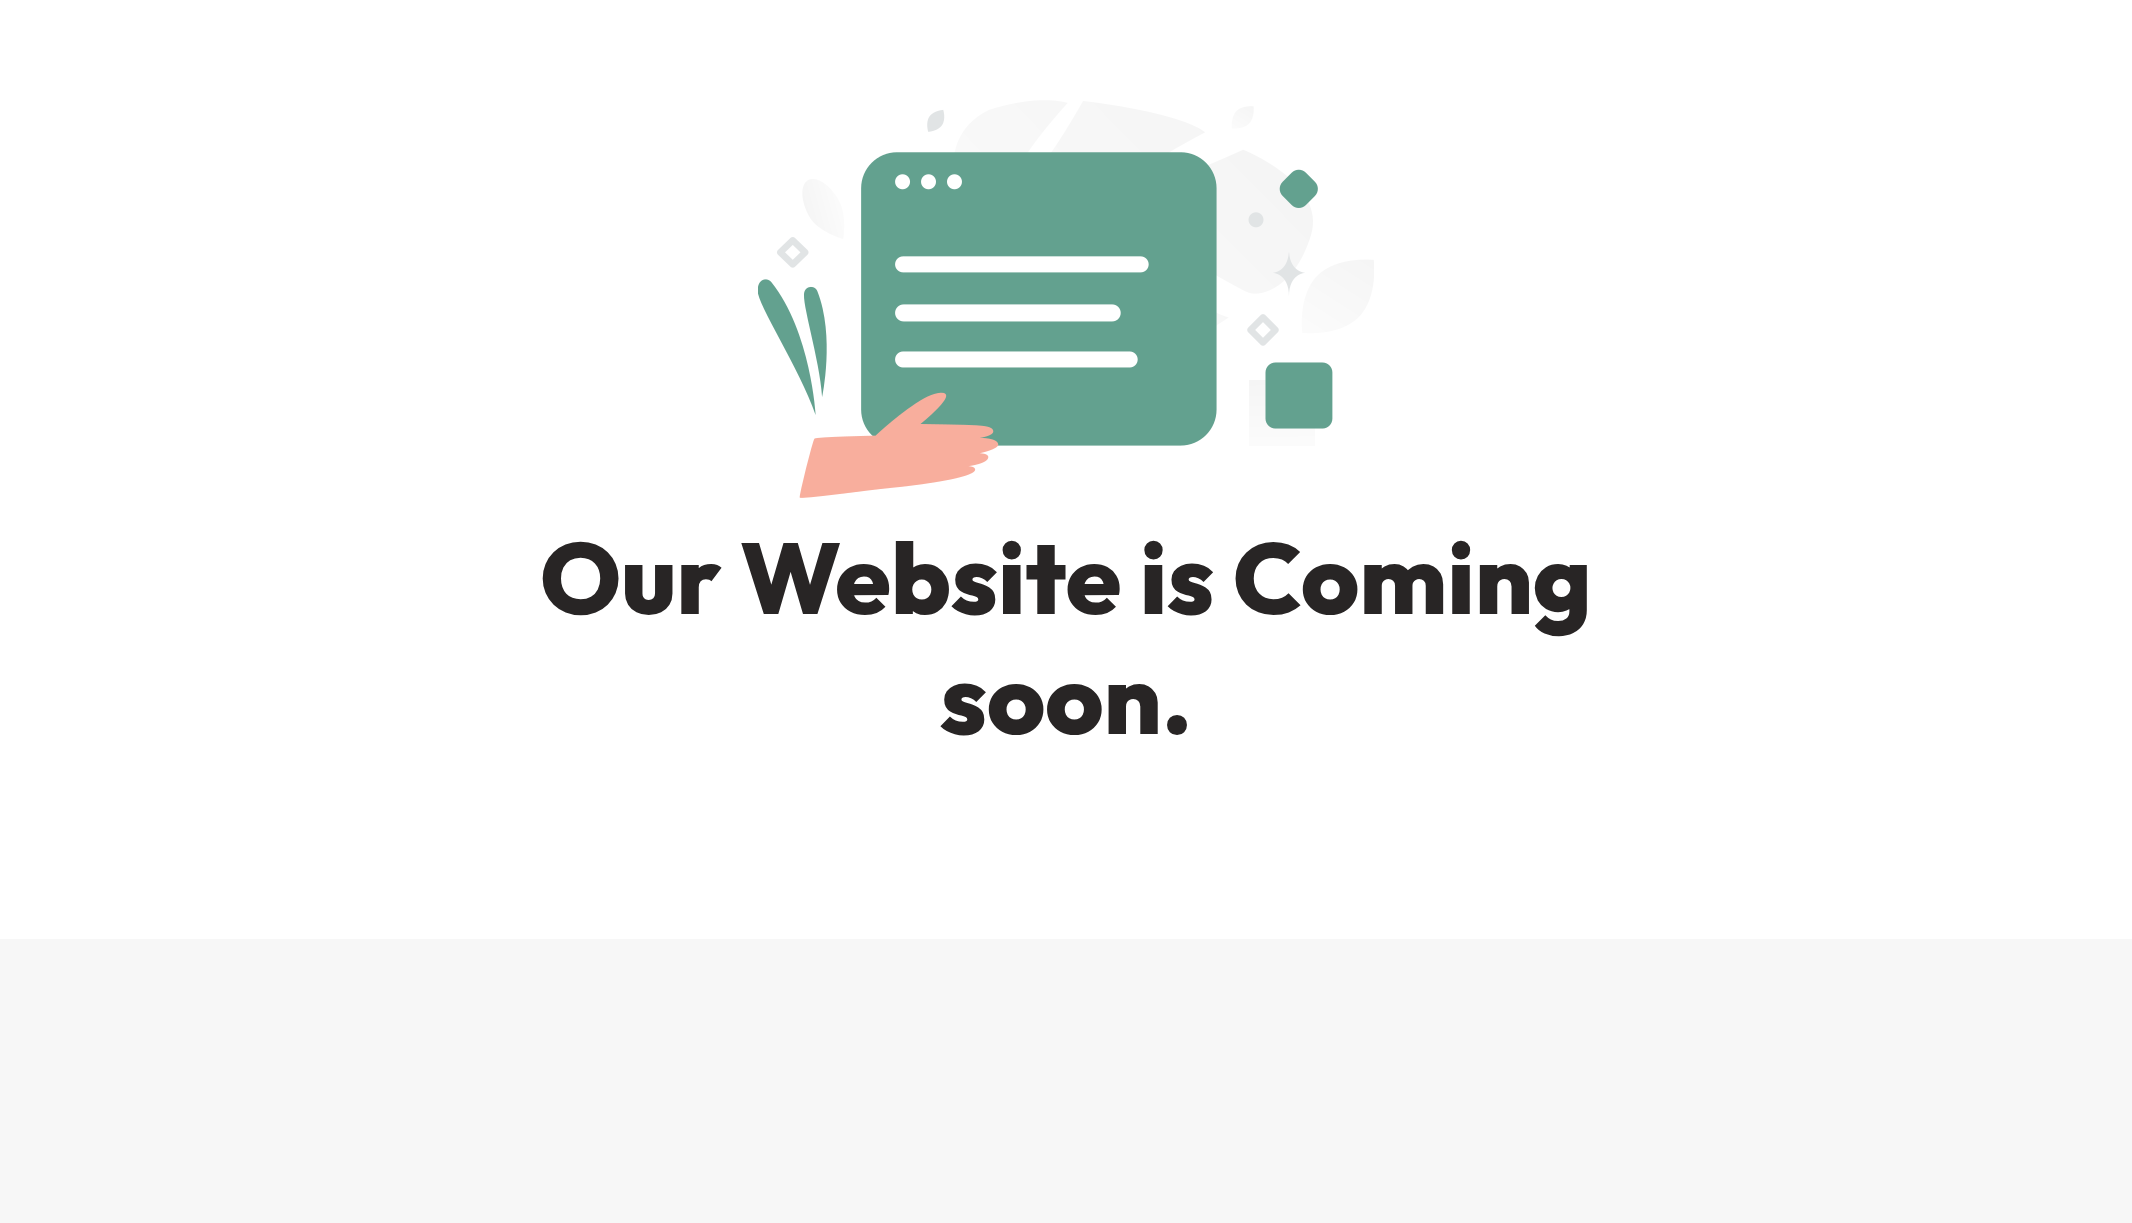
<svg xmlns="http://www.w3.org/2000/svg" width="2132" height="1223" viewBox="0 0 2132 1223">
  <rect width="100%" height="100%" fill="#f7f7f7"/>
  <path d="M0 0h2132v939H0z" fill="#fff"/>
  <image x="758" y="100" width="616" height="398" href="img/1.png"/>
  <g font-family="Outfit" font-size="100" font-weight="100" fill="#282525">
    <text x="540" y="614">Our Website is Coming</text>
    <text x="940" y="734">soon.</text>
  </g>
</svg>
